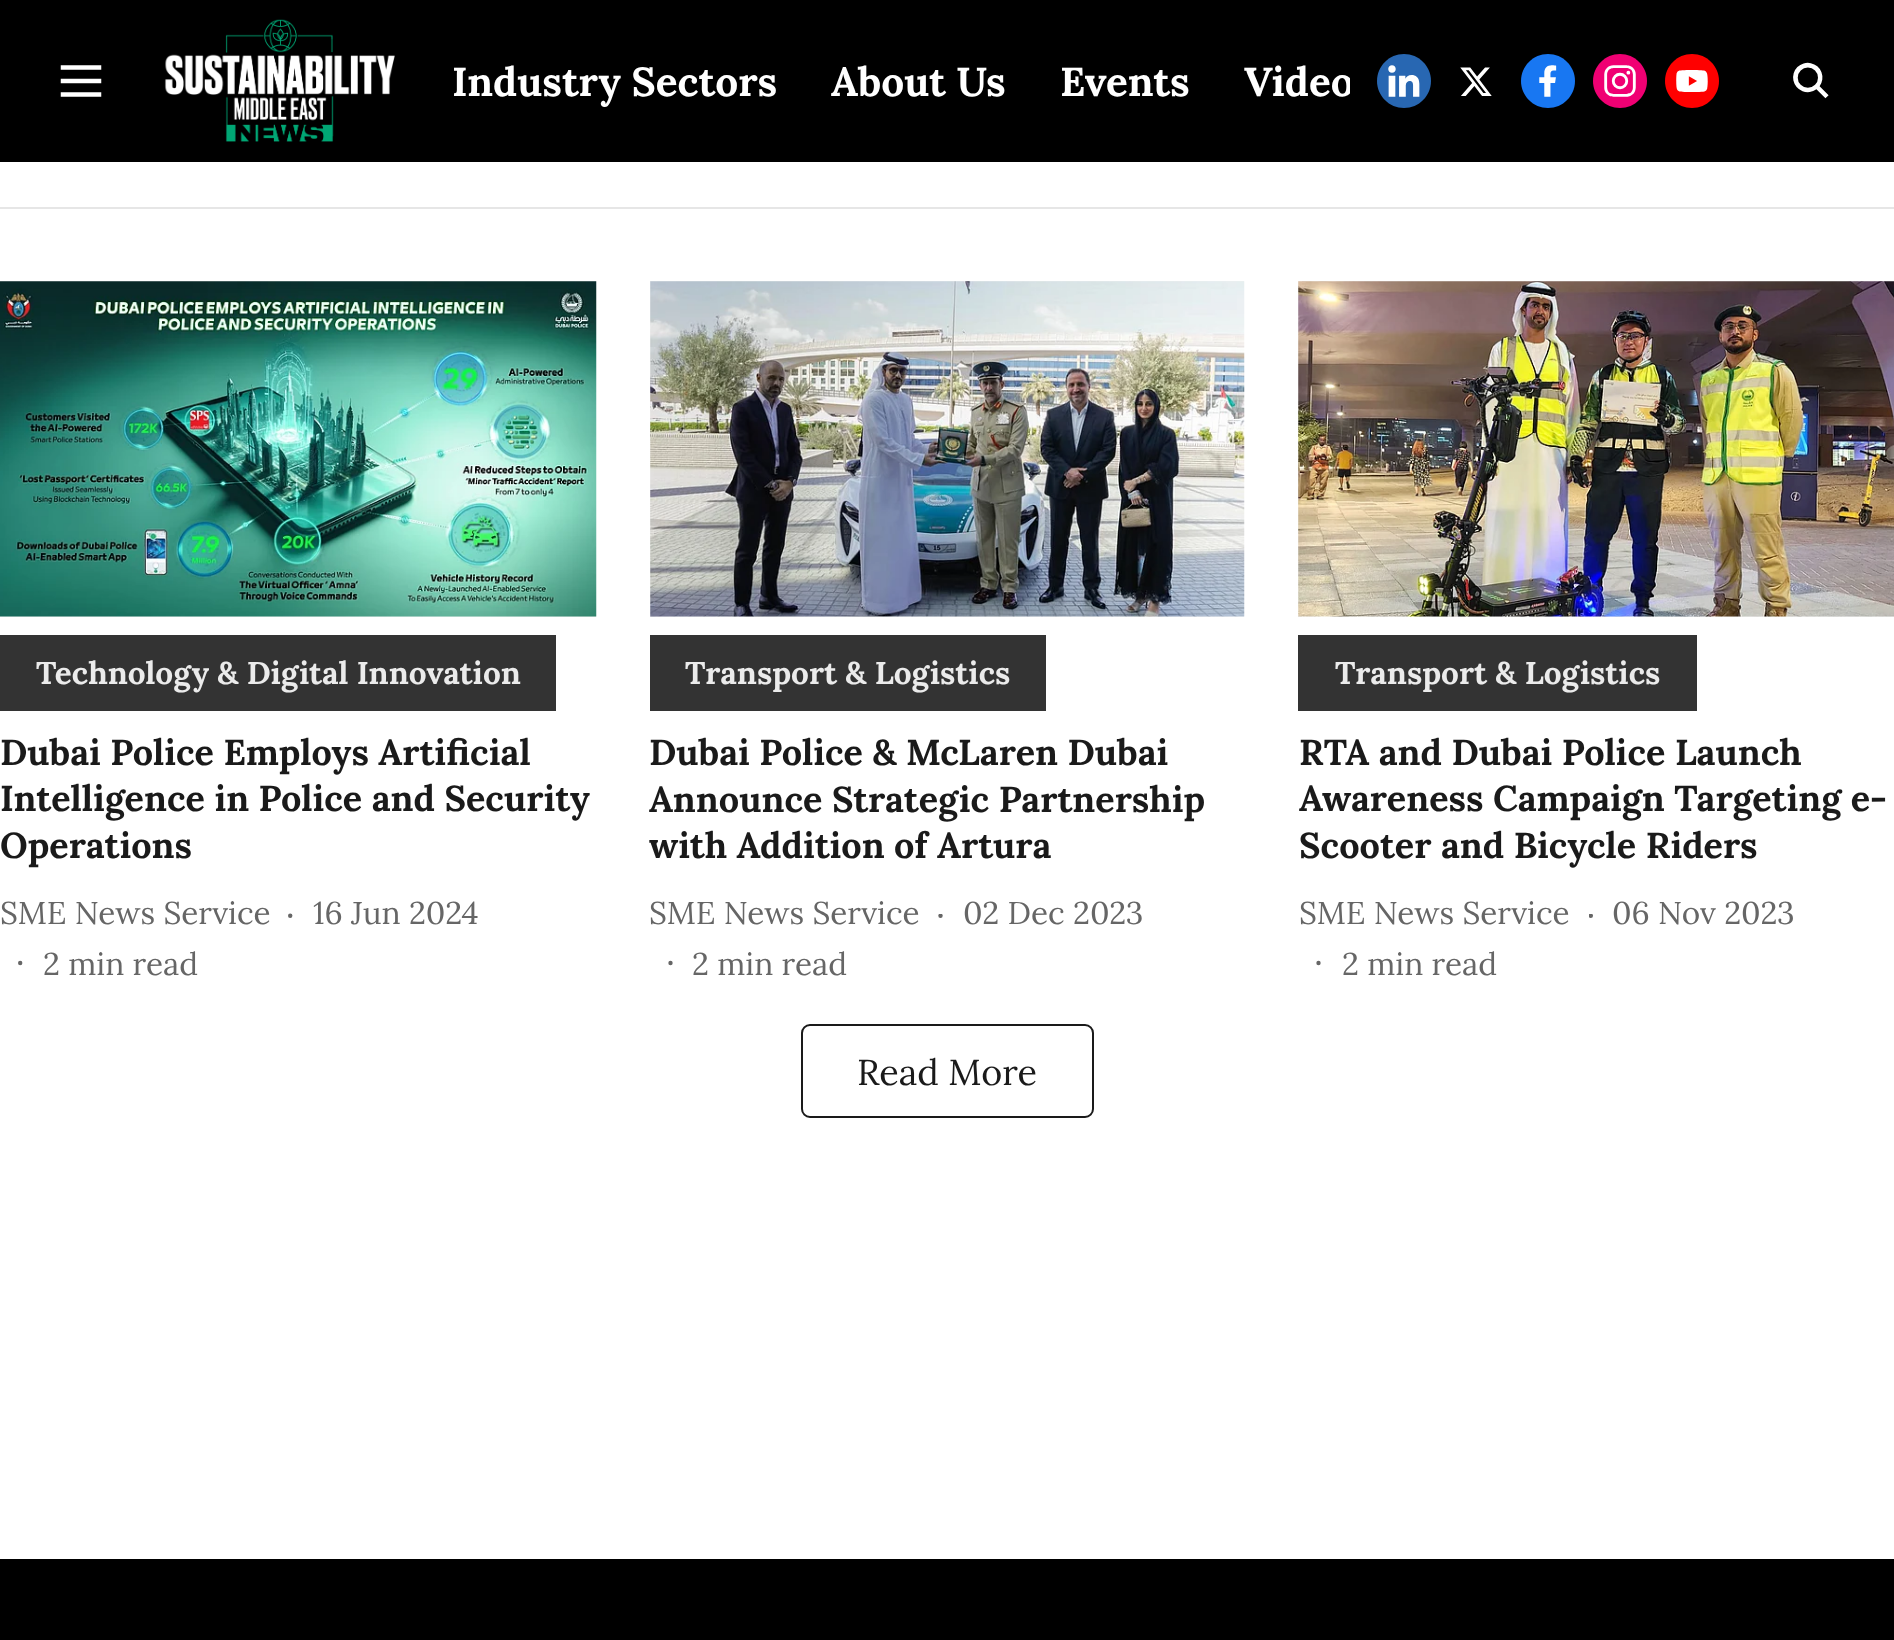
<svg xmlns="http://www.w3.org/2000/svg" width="1894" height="1640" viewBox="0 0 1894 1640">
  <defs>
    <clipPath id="clip1"><path d="M938 914h7v7H938z"/></clipPath>
    <clipPath id="clip2"><path d="M1589 914h7v7H1589z"/></clipPath>
    <clipPath id="clip3"><path d="M452 0h898v162H452z"/></clipPath>
  </defs>
  <rect width="100%" height="100%" fill="#fff"/>
  <path d="M0 0h1894v162H0z" fill="#000"/>
  <image x="60" y="65" width="42" height="32" href="img/1.png"/>
  <image x="164" y="19" width="231" height="123" href="img/2.png"/>
  <image x="1377" y="54" width="54" height="54" href="img/3.png"/>
  <image x="1460" y="67" width="32" height="29" href="img/4.png"/>
  <image x="1521" y="54" width="54" height="54" href="img/5.png"/>
  <image x="1593" y="54" width="54" height="54" href="img/6.png"/>
  <image x="1665" y="54" width="54" height="54" href="img/7.png"/>
  <image x="1793" y="62" width="36" height="37" href="img/8.png"/>
  <path d="M0 207h1894v2H0z" fill="#e6e6e6"/>
  <path d="M0 281h596v336H0z" fill="#f0f0f0"/>
  <image x="0" y="281" width="597" height="336" href="img/9.png"/>
  <path d="M0 635h556v76H0z" fill="#333"/>
  <circle cx="290.2" cy="915.8" r="2.2" fill="#666"/>
  <circle cx="20.2" cy="963" r="2.2" fill="#666"/>
  <path d="M650 281h594v336H650z" fill="#f0f0f0"/>
  <image x="650" y="281" width="595" height="336" href="img/10.png"/>
  <path d="M650 635h396v76H650z" fill="#333"/>
  <g clip-path="url(#clip1)">
    <circle cx="940.5" cy="915.8" r="2.2" fill="#666"/>
  </g>
  <circle cx="670.5" cy="963" r="2.2" fill="#666"/>
  <path d="M1298 281h596v336H1298z" fill="#f0f0f0"/>
  <image x="1298" y="281" width="596" height="336" href="img/11.png"/>
  <path d="M1298 635h399v76H1298z" fill="#333"/>
  <g clip-path="url(#clip2)">
    <circle cx="1590.8" cy="915.8" r="2.2" fill="#666"/>
  </g>
  <circle cx="1318.5" cy="963" r="2.2" fill="#666"/>
  <rect x="802" y="1025" width="291" height="92" rx="8" fill="none" stroke="#1a1a1a" stroke-width="2"/>
  <path d="M0 1559h1894v81H0z" fill="#000"/>
  <g font-family="Lora" font-size="40.5" font-weight="bold" fill="#fff">
    <text x="452" y="96">Industry Sectors</text>
    <text x="831" y="96">About Us</text>
    <text x="1060" y="96">Events</text>
  </g>
  <g clip-path="url(#clip3)">
    <text x="1244" y="96" font-family="Lora" font-size="40.5" font-weight="bold" fill="#fff">Video</text>
  </g>
  <text x="36" y="684" font-family="Lora" font-size="31.5" font-weight="bold" fill="#ebebeb">Technology &amp; Digital Innovation</text>
  <g font-family="Lora" font-size="36" font-weight="bold" fill="#1a1a1a">
    <text x="0" y="765">Dubai Police Employs Artificial</text>
    <text x="0" y="811">Intelligence in Police and Security</text>
    <text x="0" y="858">Operations</text>
  </g>
  <g font-family="Lora" font-size="31.5" fill="#666">
    <text x="0" y="924">SME News Service</text>
    <text x="313" y="924">16 Jun 2024</text>
    <text x="43" y="975">2 min read</text>
  </g>
  <text x="685" y="684" font-family="Lora" font-size="31.5" font-weight="bold" fill="#ebebeb">Transport &amp; Logistics</text>
  <g font-family="Lora" font-size="36" font-weight="bold" fill="#1a1a1a">
    <text x="649" y="765">Dubai Police &amp; McLaren Dubai</text>
    <text x="649" y="812">Announce Strategic Partnership</text>
    <text x="649" y="858">with Addition of Artura</text>
  </g>
  <g font-family="Lora" font-size="31.5" fill="#666">
    <text x="649" y="924">SME News Service</text>
    <text x="963" y="924">02 Dec 2023</text>
    <text x="692" y="975">2 min read</text>
  </g>
  <text x="1335" y="684" font-family="Lora" font-size="31.5" font-weight="bold" fill="#ebebeb">Transport &amp; Logistics</text>
  <g font-family="Lora" font-size="36" font-weight="bold" fill="#1a1a1a">
    <text x="1299" y="765">RTA and Dubai Police Launch</text>
    <text x="1299" y="811">Awareness Campaign Targeting e-</text>
    <text x="1299" y="858">Scooter and Bicycle Riders</text>
  </g>
  <g font-family="Lora" font-size="31.5" fill="#666">
    <text x="1299" y="924">SME News Service</text>
    <text x="1612" y="924">06 Nov 2023</text>
    <text x="1342" y="975">2 min read</text>
  </g>
  <text x="857" y="1085" font-family="Lora" font-size="36" fill="#1a1a1a">Read More</text>
</svg>
